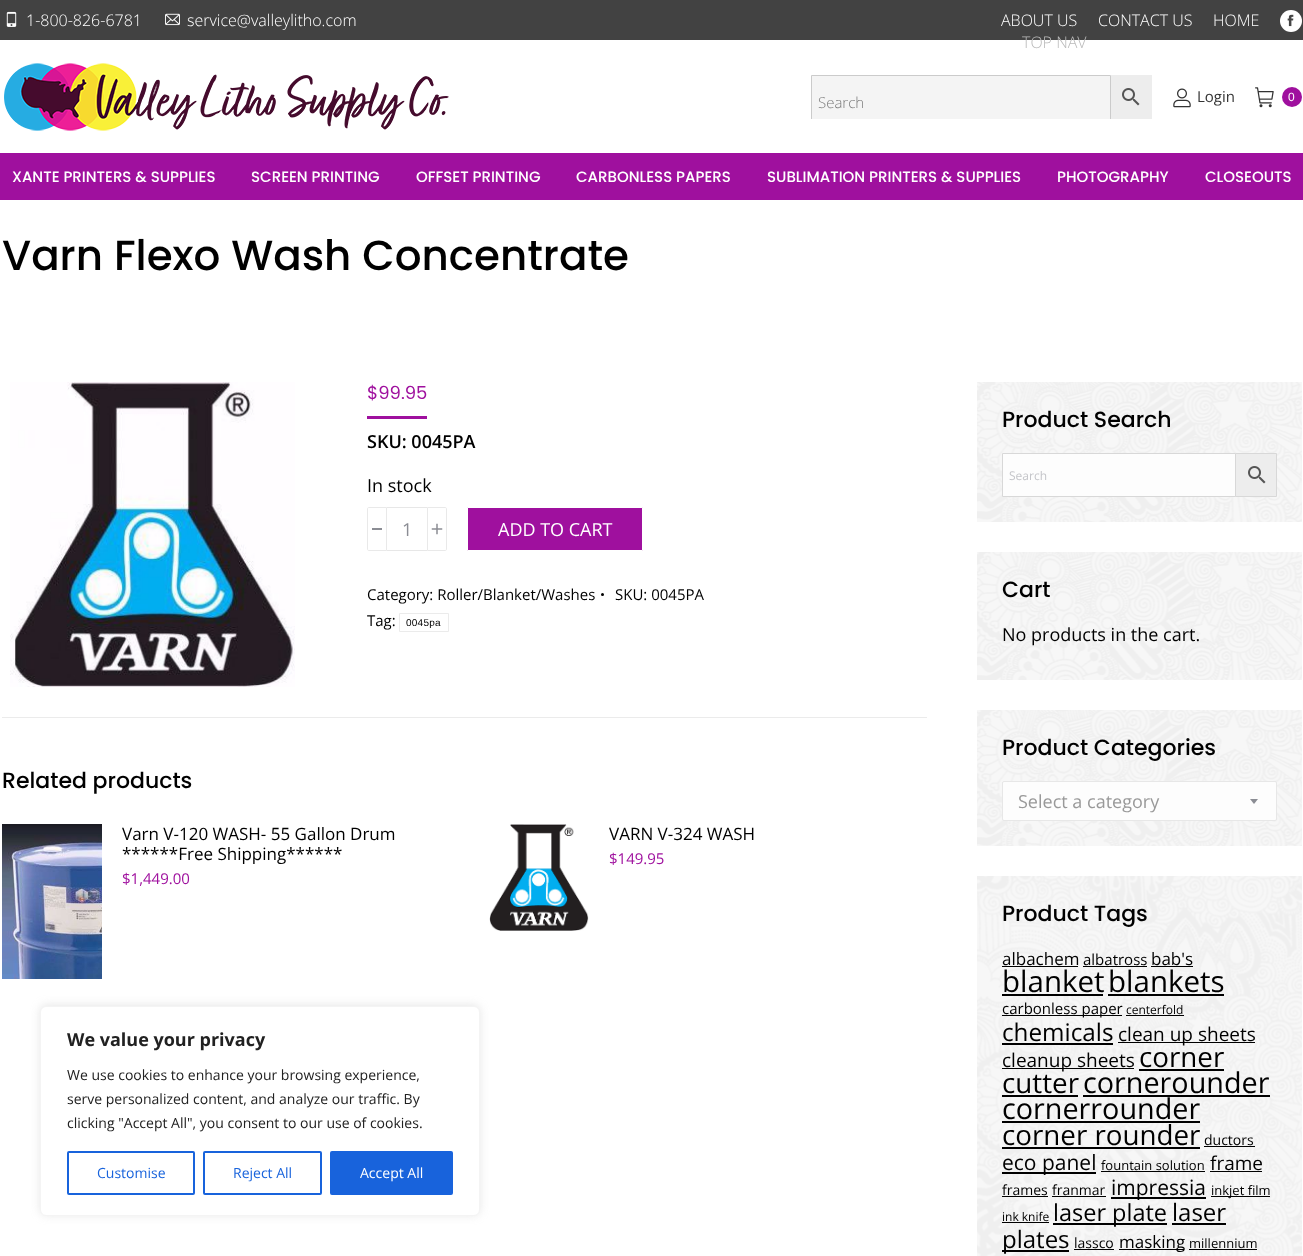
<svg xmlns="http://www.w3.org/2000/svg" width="1303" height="1256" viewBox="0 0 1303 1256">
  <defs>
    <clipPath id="clip1"><path d="M811 75h300v44H811z"/></clipPath>
  </defs>
  <rect width="100%" height="100%" fill="#fff"/>
  <path d="M0 0h1303v40H0z" fill="#424242"/>
  <image x="6" y="11" width="11" height="16" href="img/1.png"/>
  <image x="165" y="13" width="15" height="13" href="img/2.png"/>
  <circle cx="1291" cy="21" r="11" fill="#fff"/>
  <image x="1287" y="14" width="7" height="13" href="img/3.png"/>
  <image x="4" y="63" width="445" height="68" href="img/4.png"/>
  <path d="M812 76h298v43H812z" fill="#f4f4f4"/>
  <g clip-path="url(#clip1)">
    <path d="M811.5 75.5h299v53H811.5z" fill="none" stroke="#cbcbcb"/>
  </g>
  <path d="M1111 75h41v44H1111z" fill="#ededed"/>
  <image x="1122" y="88" width="18" height="18" href="img/5.png"/>
  <image x="1173" y="88" width="18" height="20" href="img/6.png"/>
  <image x="1255" y="87" width="19" height="21" href="img/7.png"/>
  <circle cx="1292" cy="97" r="10" fill="#9f109e"/>
  <path d="M0 153h1303v47H0z" fill="#9f109e"/>
  <image x="10" y="382" width="285" height="305" href="img/8.png"/>
  <path d="M367 416h60v3H367z" fill="#9f109e"/>
  <path d="M369 507.5H386.5V550.5H369C368 550.5 367.5 550 367.5 549V509C367.5 508 368 507.5 369 507.5Z" fill="none" stroke="#e9e9e9"/>
  <path d="M372 528h10v2H372z" fill="#8b8d94"/>
  <path d="M387 507h40v1H387z" fill="#e7e7e7"/>
  <path d="M387 550h40v1H387z" fill="#e7e7e7"/>
  <path d="M427.5 507.5H445C446 507.5 446.5 508 446.5 509V549C446.5 550 446 550.5 445 550.5H427.5Z" fill="none" stroke="#e9e9e9"/>
  <image x="431" y="523" width="12" height="12" href="img/9.png"/>
  <rect x="467.5" y="507.5" width="175" height="43" rx="0.5" fill="#9f109e" stroke="#fff"/>
  <circle cx="602.5" cy="594.5" r="1.5" fill="#000"/>
  <path d="M399.5 613.5h49v18H399.5z" fill="none" stroke="#ebebeb"/>
  <path d="M2 717h925v1H2z" fill="#ebebeb"/>
  <image x="2" y="824" width="100" height="155" href="img/10.png"/>
  <image x="489" y="824" width="100" height="107" href="img/11.png"/>
  <image x="977" y="382" width="325" height="140" href="img/12.png"/>
  <path d="M1235.5 453.5h41v43H1235.5z" fill="#ededed" stroke="#d8d8d8"/>
  <path d="M1002.5 453.5h233v43H1002.5z" fill="#fdfdfd" stroke="#d8d8d8"/>
  <image x="1248" y="466" width="18" height="18" href="img/5.png"/>
  <image x="977" y="552" width="325" height="128" href="img/13.png"/>
  <image x="977" y="710" width="325" height="136" href="img/14.png"/>
  <rect x="1002.5" y="781.5" width="274" height="39" rx="1.5" fill="#fdfdfd" stroke="#e7e7e7"/>
  <path d="M1250 799H1258L1254 804Z" fill="#8b8d94"/>
  <image x="977" y="876" width="325" height="380" href="img/15.png"/>
  <path d="M1002 966h76v1H1002z" fill="#000"/>
  <path d="M1083 966h64v1H1083z" fill="#000"/>
  <path d="M1151 966h42v1H1151z" fill="#000"/>
  <path d="M1002 994h101v2H1002z" fill="#000"/>
  <path d="M1108 994h116v2H1108z" fill="#000"/>
  <path d="M1002 1015h120v1H1002z" fill="#000"/>
  <path d="M1126 1015h58v1H1126z" fill="#000"/>
  <path d="M1002 1043h111v2H1002z" fill="#000"/>
  <path d="M1118 1042h137v1H1118z" fill="#000"/>
  <path d="M1002 1068h132v1H1002z" fill="#000"/>
  <path d="M1139 1069h85v2H1139z" fill="#000"/>
  <path d="M1002 1095h76v2H1002z" fill="#000"/>
  <path d="M1083 1095h187v2H1083z" fill="#000"/>
  <path d="M1002 1121h198v2H1002z" fill="#000"/>
  <path d="M1002 1147h198v2H1002z" fill="#000"/>
  <path d="M1204 1146h51v1H1204z" fill="#000"/>
  <path d="M1002 1172h94v2H1002z" fill="#000"/>
  <path d="M1101 1171h104v1H1101z" fill="#000"/>
  <path d="M1210 1171h52v1H1210z" fill="#000"/>
  <path d="M1002 1196h46v1H1002z" fill="#000"/>
  <path d="M1052 1196h54v1H1052z" fill="#000"/>
  <path d="M1111 1197h95v2H1111z" fill="#000"/>
  <path d="M1211 1196h59v1H1211z" fill="#000"/>
  <path d="M1002 1222h47v1H1002z" fill="#000"/>
  <path d="M1053 1223h114v2H1053z" fill="#000"/>
  <path d="M1172 1223h54v2H1172z" fill="#000"/>
  <path d="M1002 1250h67v2H1002z" fill="#000"/>
  <path d="M1074 1249h40v1H1074z" fill="#000"/>
  <path d="M1119 1249h65v1H1119z" fill="#000"/>
  <path d="M1189 1249h68v1H1189z" fill="#000"/>
  <rect x="40" y="1005" width="440" height="210" rx="6" fill="#acabab4d" filter="blur(5px)"/>
  <rect x="40.5" y="1006.5" width="439" height="209" rx="5.5" fill="#fff" stroke="#f4f4f4"/>
  <rect x="68" y="1152" width="126" height="42" rx="1" fill="none" stroke="#1863dc" stroke-width="2"/>
  <rect x="204" y="1152" width="117" height="42" rx="1" fill="none" stroke="#1863dc" stroke-width="2"/>
  <rect x="331" y="1152" width="121" height="42" rx="1" fill="#1863dc" stroke="#1863dc" stroke-width="2"/>
  <g font-family="Open Sans" font-size="16" font-weight="300" fill="#fff">
    <text x="26" y="26">1-800-826-6781</text>
    <text x="187" y="26">service@valleylitho.com</text>
    <text x="1001" y="26">ABOUT US</text>
    <text x="1098" y="26">CONTACT US</text>
    <text x="1213" y="26">HOME</text>
  </g>
  <text x="1022" y="48" font-family="Open Sans" font-size="16" font-weight="300" fill="#bababa">TOP NAV</text>
  <text x="818" y="108" font-family="Open Sans" font-size="15" font-weight="300" fill="#7a7a7a">Search</text>
  <text x="1197" y="102" font-family="Open Sans" font-size="15" fill="#333">Login</text>
  <text x="1288" y="101" font-family="Liberation Sans" font-size="12" fill="#fff">0</text>
  <g font-family="Poppins" font-size="15" font-weight="500" fill="#fff">
    <text x="12" y="182">XANTE PRINTERS &amp; SUPPLIES</text>
    <text x="251" y="182">SCREEN PRINTING</text>
    <text x="416" y="182">OFFSET PRINTING</text>
    <text x="576" y="182">CARBONLESS PAPERS</text>
    <text x="767" y="182">SUBLIMATION PRINTERS &amp; SUPPLIES</text>
    <text x="1057" y="182">PHOTOGRAPHY</text>
    <text x="1205" y="182">CLOSEOUTS</text>
  </g>
  <text x="2" y="270" font-family="Poppins" font-size="42" font-weight="500" fill="#000">Varn Flexo Wash Concentrate</text>
  <text x="367" y="399" font-family="Poppins" font-size="18" fill="#9f109e">$99.95</text>
  <text x="367" y="448" font-family="Open Sans" font-size="18" font-weight="600" fill="#000">SKU: 0045PA</text>
  <text x="367" y="492" font-family="Open Sans" font-size="18" fill="#000">In stock</text>
  <text x="402" y="536" font-family="Open Sans" font-size="18" fill="#8b8d94">1</text>
  <text x="498" y="536" font-family="Open Sans" font-size="18" fill="#fff">ADD TO CART</text>
  <g font-family="Open Sans" font-size="15" fill="#000">
    <text x="367" y="600">Category: Roller/Blanket/Washes</text>
    <text x="615" y="600">SKU: 0045PA</text>
    <text x="367" y="626">Tag:</text>
  </g>
  <text x="406" y="626" font-family="Liberation Sans" font-size="10" letter-spacing="0.25" fill="#000">0045pa</text>
  <text x="2" y="788" font-family="Poppins" font-size="22" font-weight="500" fill="#000">Related products</text>
  <g font-family="Open Sans" font-size="17" fill="#000">
    <text x="122" y="840">Varn V-120 WASH- 55 Gallon Drum</text>
    <text x="122" y="860">******Free Shipping******</text>
  </g>
  <text x="122" y="884" font-family="Open Sans" font-size="15" fill="#9f109e">$1,449.00</text>
  <text x="609" y="840" font-family="Open Sans" font-size="17" fill="#000">VARN V-324 WASH</text>
  <text x="609" y="864" font-family="Open Sans" font-size="15" fill="#9f109e">$149.95</text>
  <text x="1002" y="427" font-family="Poppins" font-size="22" font-weight="500" fill="#000">Product Search</text>
  <text x="1009" y="480" font-family="Open Sans" font-size="12" fill="#c4c5c9">Search</text>
  <text x="1002" y="597" font-family="Poppins" font-size="22" font-weight="500" fill="#000">Cart</text>
  <text x="1002" y="641" font-family="Open Sans" font-size="18" fill="#000">No products in the cart.</text>
  <text x="1002" y="755" font-family="Poppins" font-size="22" font-weight="500" fill="#000">Product Categories</text>
  <text x="1018" y="808" font-family="Open Sans" font-size="18" fill="#999">Select a category</text>
  <text x="1002" y="921" font-family="Poppins" font-size="22" font-weight="500" fill="#000">Product Tags</text>
  <text x="1002" y="965" font-family="Open Sans" font-size="17" fill="#000">albachem</text>
  <text x="1083" y="965" font-family="Open Sans" font-size="15" fill="#000">albatross</text>
  <text x="1151" y="965" font-family="Open Sans" font-size="17" fill="#000">bab's</text>
  <g font-family="Open Sans" font-size="29.5" fill="#000">
    <text x="1002" y="992">blanket</text>
    <text x="1108" y="992">blankets</text>
  </g>
  <text x="1002" y="1014" font-family="Open Sans" font-size="15" fill="#000">carbonless paper</text>
  <text x="1126" y="1014" font-family="Open Sans" font-size="12" fill="#000">centerfold</text>
  <text x="1002" y="1041" font-family="Open Sans" font-size="24.25" fill="#000">chemicals</text>
  <g font-family="Open Sans" font-size="19" fill="#000">
    <text x="1118" y="1041">clean up sheets</text>
    <text x="1002" y="1067">cleanup sheets</text>
  </g>
  <g font-family="Open Sans" font-size="27.75" fill="#000">
    <text x="1139" y="1067">corner</text>
    <text x="1002" y="1093">cutter</text>
  </g>
  <g font-family="Open Sans" font-size="28.75" fill="#000">
    <text x="1083" y="1093">cornerounder</text>
    <text x="1002" y="1119">cornerrounder</text>
  </g>
  <text x="1002" y="1145" font-family="Open Sans" font-size="27.75" fill="#000">corner rounder</text>
  <text x="1204" y="1145" font-family="Open Sans" font-size="14" fill="#000">ductors</text>
  <text x="1002" y="1170" font-family="Open Sans" font-size="21" fill="#000">eco panel</text>
  <text x="1101" y="1170" font-family="Open Sans" font-size="13" fill="#000">fountain solution</text>
  <text x="1210" y="1170" font-family="Open Sans" font-size="19" fill="#000">frame</text>
  <g font-family="Open Sans" font-size="14" fill="#000">
    <text x="1002" y="1195">frames</text>
    <text x="1052" y="1195">franmar</text>
  </g>
  <text x="1111" y="1195" font-family="Open Sans" font-size="21" fill="#000">impressia</text>
  <text x="1211" y="1195" font-family="Open Sans" font-size="13" fill="#000">inkjet film</text>
  <text x="1002" y="1221" font-family="Open Sans" font-size="12" fill="#000">ink knife</text>
  <text x="1053" y="1221" font-family="Open Sans" font-size="23.5" fill="#000">laser plate</text>
  <g font-family="Open Sans" font-size="24" fill="#000">
    <text x="1172" y="1221">laser</text>
    <text x="1002" y="1248">plates</text>
  </g>
  <text x="1074" y="1248" font-family="Open Sans" font-size="14" fill="#000">lassco</text>
  <text x="1119" y="1248" font-family="Open Sans" font-size="17" fill="#000">masking</text>
  <text x="1189" y="1248" font-family="Open Sans" font-size="13" fill="#000">millennium</text>
  <text x="67" y="1046" font-family="Open Sans" font-size="18" font-weight="bold" fill="#212121">We value your privacy</text>
  <g font-family="Open Sans" font-size="14" fill="#212121">
    <text x="67" y="1080">We use cookies to enhance your browsing experience,</text>
    <text x="67" y="1104">serve personalized content, and analyze our traffic. By</text>
    <text x="67" y="1128">clicking "Accept All", you consent to our use of cookies.</text>
  </g>
  <g font-family="Open Sans" font-size="14" fill="#1863dc">
    <text x="97" y="1178">Customise</text>
    <text x="233" y="1178">Reject All</text>
  </g>
  <text x="360" y="1178" font-family="Open Sans" font-size="14" fill="#fff">Accept All</text>
</svg>
